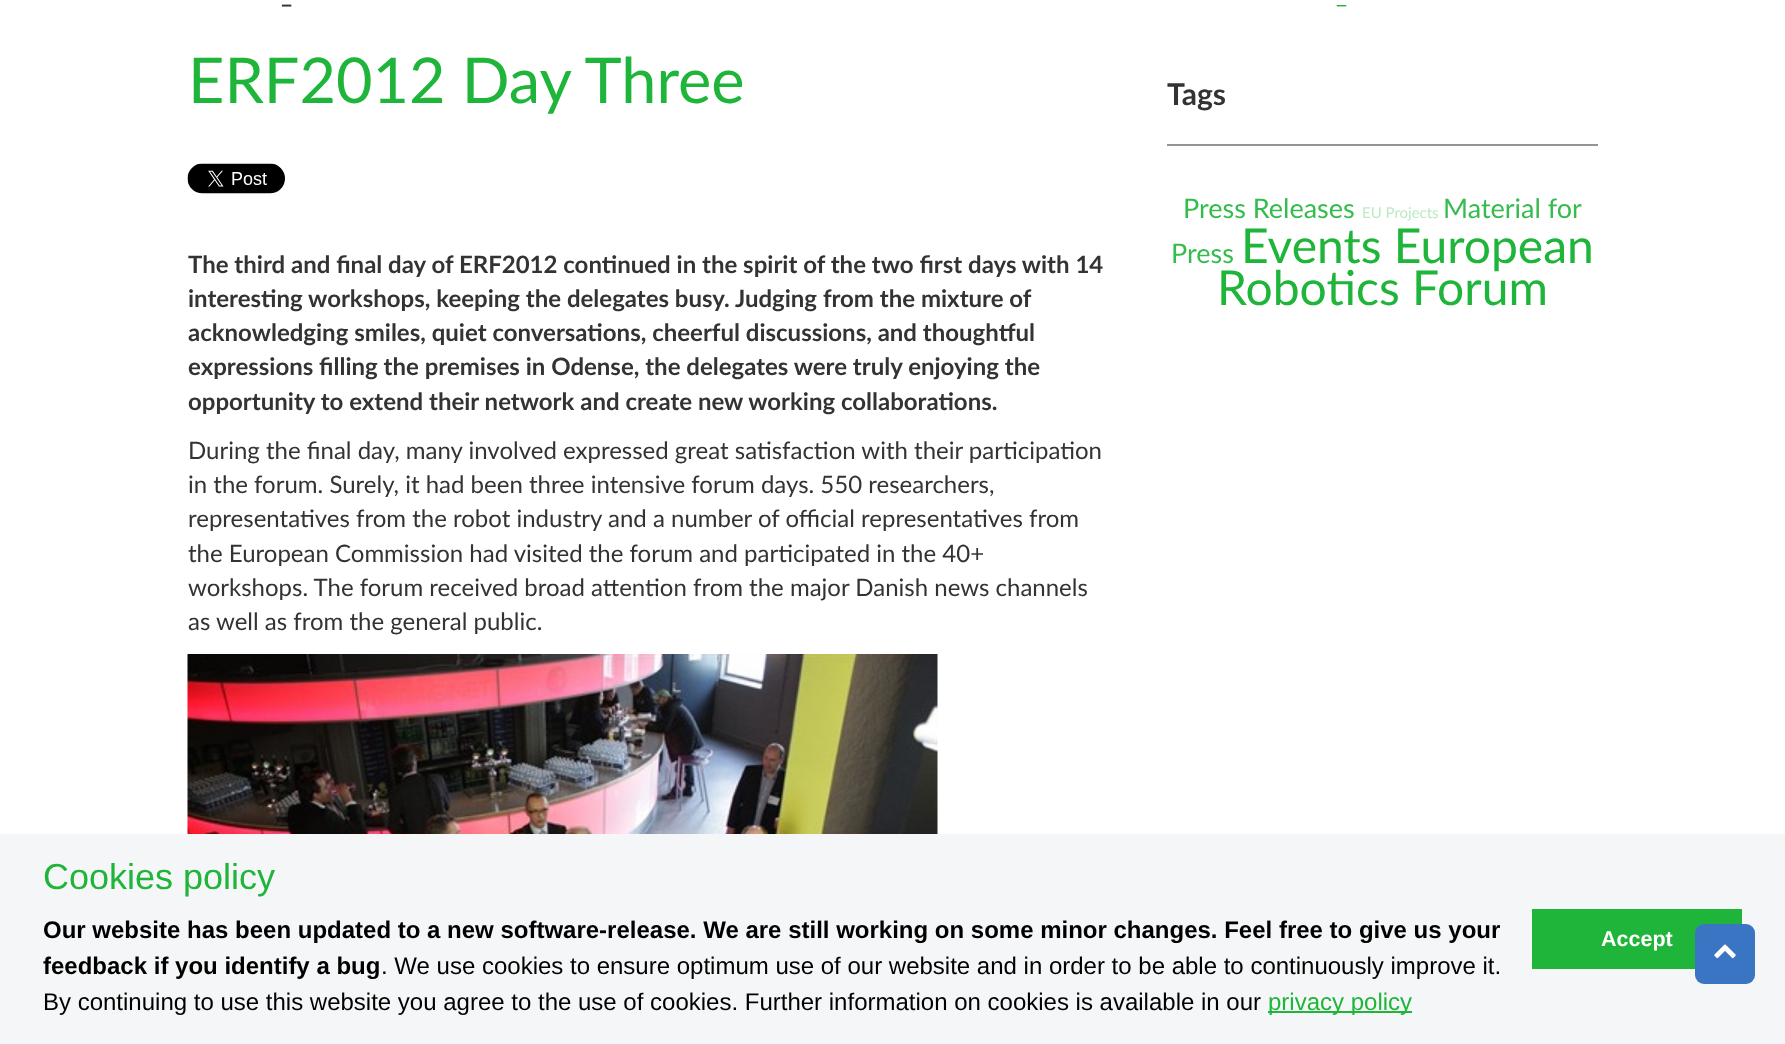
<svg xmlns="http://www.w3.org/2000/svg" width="1785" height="1044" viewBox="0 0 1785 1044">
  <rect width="100%" height="100%" fill="#fff"/>
  <image x="187" y="163" width="98" height="31" href="img/1.png"/>
  <image x="187" y="654" width="751" height="180" href="img/2.png"/>
  <path d="M1167 144h431v2H1167z" fill="#919693"/>
  <path d="M0 834h1785v210H0z" fill="#f5f6f7"/>
  <path d="M1268 1011h144v2H1268z" fill="#1eb53a"/>
  <path d="M1532 909h210v60H1532z" fill="#1eb53a"/>
  <rect x="1695" y="924" width="60" height="60" rx="9" fill="#3a75c4"/>
  <image x="1714" y="944" width="22" height="15" href="img/3.png"/>
  <text x="281" y="3" font-family="Lato" font-size="24" font-weight="bold" fill="#333">_</text>
  <text x="188" y="103" font-family="Lato" font-size="63" fill="#1eb53a">ERF2012 Day Three</text>
  <g font-family="Lato" font-size="24" font-weight="bold" fill="#333">
    <text x="188" y="273">The third and final day of ERF2012 continued in the spirit of the two first days with 14</text>
    <text x="188" y="307">interesting workshops, keeping the delegates busy. Judging from the mixture of</text>
    <text x="188" y="341">acknowledging smiles, quiet conversations, cheerful discussions, and thoughtful</text>
    <text x="188" y="375">expressions filling the premises in Odense, the delegates were truly enjoying the</text>
    <text x="188" y="410">opportunity to extend their network and create new working collaborations.</text>
  </g>
  <g font-family="Lato" font-size="24" fill="#333">
    <text x="188" y="459">During the final day, many involved expressed great satisfaction with their participation</text>
    <text x="188" y="493">in the forum. Surely, it had been three intensive forum days. 550 researchers,</text>
    <text x="188" y="527">representatives from the robot industry and a number of official representatives from</text>
    <text x="188" y="562">the European Commission had visited the forum and participated in the 40+</text>
    <text x="188" y="596">workshops. The forum received broad attention from the major Danish news channels</text>
    <text x="188" y="630">as well as from the general public.</text>
  </g>
  <text x="1336" y="3" font-family="Lato" font-size="24" fill="#1eb53a">_</text>
  <text x="1167" y="105" font-family="Lato" font-size="30" font-weight="bold" fill="#333">Tags</text>
  <text x="1183" y="218" font-family="Lato" font-size="27" fill="#35bc4e">Press Releases</text>
  <text x="1362" y="218" font-family="Lato" font-size="15" fill="#bce9c4">EU Projects</text>
  <g font-family="Lato" font-size="27" fill="#35bc4e">
    <text x="1443" y="218">Material for</text>
    <text x="1171" y="263">Press</text>
  </g>
  <g font-family="Lato" font-size="48" fill="#1eb53a">
    <text x="1241" y="263">Events European</text>
    <text x="1217" y="305">Robotics Forum</text>
  </g>
  <text x="43" y="889" font-family="Liberation Sans" font-size="36" fill="#1eb53a">Cookies policy</text>
  <g font-family="Liberation Sans" font-size="24" font-weight="bold" fill="#000">
    <text x="43" y="938">Our website has been updated to a new software-release. We are still working on some minor changes. Feel free to give us your</text>
    <text x="43" y="974">feedback if you identify a bug</text>
  </g>
  <g font-family="Liberation Sans" font-size="24" fill="#000">
    <text x="381" y="974">. We use cookies to ensure optimum use of our website and in order to be able to continuously improve it.</text>
    <text x="43" y="1010">By continuing to use this website you agree to the use of cookies. Further information on cookies is available in our</text>
  </g>
  <text x="1268" y="1010" font-family="Liberation Sans" font-size="24" fill="#1eb53a">privacy policy</text>
  <text x="1601" y="946" font-family="Liberation Sans" font-size="21.5" font-weight="bold" fill="#fff">Accept</text>
</svg>
